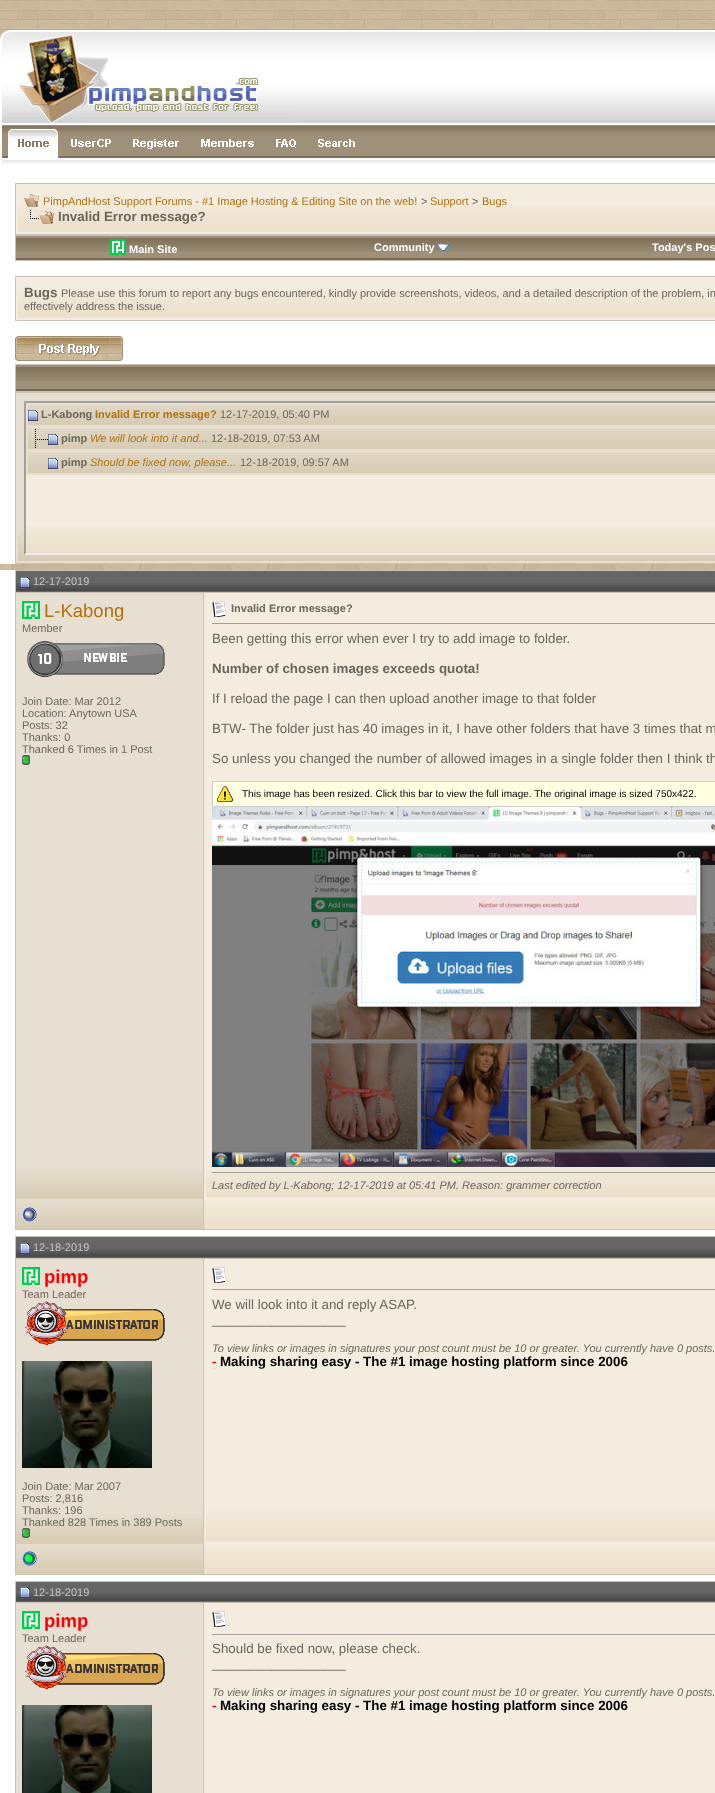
<svg xmlns="http://www.w3.org/2000/svg" width="715" height="1793" viewBox="0 0 715 1793">
  <rect width="100%" height="100%" fill="#fff"/>
  <image x="0" y="0" width="715" height="570" href="img/1.png"/>
  <image x="0" y="30" width="294" height="95" href="img/2.png"/>
  <image x="294" y="30" width="421" height="95" href="img/3.png"/>
  <path d="M0 125h2v58H0z" fill="#fff"/>
  <image x="2" y="125" width="63" height="33" href="img/4.png"/>
  <image x="65" y="125" width="57" height="33" href="img/5.png"/>
  <image x="122" y="125" width="67" height="33" href="img/6.png"/>
  <image x="189" y="125" width="75" height="33" href="img/7.png"/>
  <image x="264" y="125" width="43" height="33" href="img/8.png"/>
  <image x="307" y="125" width="59" height="33" href="img/9.png"/>
  <image x="366" y="125" width="349" height="33" href="img/10.png"/>
  <image x="2" y="158" width="713" height="25" href="img/11.png"/>
  <path d="M0 183h715v209H0z" fill="#fff"/>
  <path d="M15 183h700v78H15z" fill="#cac3b5"/>
  <path d="M18 186h697v19H18z" fill="#f3ecdf"/>
  <image x="18" y="205" width="697" height="27" href="img/12.png"/>
  <path d="M17 185h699v48H17z" fill="none" stroke="#f3ecdf" stroke-width="2"/>
  <image x="24" y="194" width="15" height="13" href="img/13.png"/>
  <image x="30" y="210" width="24" height="14" href="img/14.png"/>
  <path d="M16 236h699v22H16z" fill="#9e9079"/>
  <image x="16" y="238" width="256" height="14" href="img/15.png"/>
  <path d="M16 258h699v2H16z" fill="#7a6a53"/>
  <image x="110" y="239" width="16" height="16" href="img/16.png"/>
  <image x="272" y="238" width="279" height="14" href="img/17.png"/>
  <image x="438" y="244" width="11" height="7" href="img/18.png"/>
  <image x="551" y="238" width="164" height="14" href="img/19.png"/>
  <path d="M15 276h700v45H15z" fill="#cac3b5"/>
  <path d="M18 279h697v12H18z" fill="#f3ecdf"/>
  <image x="18" y="291" width="697" height="27" href="img/12.png"/>
  <path d="M17 278h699v41H17z" fill="none" stroke="#f3ecdf" stroke-width="2"/>
  <image x="15" y="336" width="108" height="25" href="img/20.png"/>
  <path d="M15 364h700v200H15z" fill="#cac3b5"/>
  <path d="M16 365h699v24H16z" fill="#9e9079"/>
  <image x="16" y="367" width="699" height="14" href="img/21.png"/>
  <path d="M16 389h699v2H16z" fill="#7a6a53"/>
  <path d="M0 392h15v172H0z" fill="#fff"/>
  <path d="M18 395h697v136H18z" fill="#e7e0d2"/>
  <image x="18" y="531" width="697" height="30" href="img/22.png"/>
  <path d="M17 394h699v168H17z" fill="none" stroke="#e7e0d2" stroke-width="2"/>
  <path d="M24 401h691v154H24z" fill="#f3ecdf"/>
  <image x="26" y="526" width="689" height="27" href="img/23.png"/>
  <path d="M24 401H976L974 403H26Z" fill="#9f9f9f"/>
  <path d="M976 555H24L26 553H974Z" fill="#eee"/>
  <path d="M24 555V401L26 403V553Z" fill="#9f9f9f"/>
  <image x="28" y="405" width="687" height="20" href="img/24.png"/>
  <path d="M27 404h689v22H27z" fill="none" stroke="#e7e0d2" stroke-width="2"/>
  <image x="28" y="410" width="10" height="11" href="img/25.png"/>
  <image x="28" y="429" width="687" height="20" href="img/24.png"/>
  <path d="M27 428h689v22H27z" fill="none" stroke="#e7e0d2" stroke-width="2"/>
  <image x="35" y="429" width="13" height="19" href="img/26.png"/>
  <image x="48" y="434" width="10" height="11" href="img/25.png"/>
  <image x="28" y="453" width="687" height="20" href="img/24.png"/>
  <path d="M27 452h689v22H27z" fill="none" stroke="#e7e0d2" stroke-width="2"/>
  <image x="48" y="458" width="10" height="11" href="img/25.png"/>
  <path d="M16 571h699v21H16z" fill="#666"/>
  <image x="16" y="583" width="188" height="8" href="img/27.png"/>
  <path d="M15 570h700v1H15z" fill="#cac3b5"/>
  <path d="M15 592h700v1H15z" fill="#cac3b5"/>
  <path d="M15 570h1v629H15z" fill="#cac3b5"/>
  <image x="20" y="577" width="10" height="11" href="img/28.png"/>
  <image x="204" y="583" width="511" height="8" href="img/29.png"/>
  <path d="M16 593h187v576H16z" fill="#e7e0d2"/>
  <image x="16" y="1169" width="187" height="30" href="img/30.png"/>
  <path d="M203 593h1v637H203z" fill="#cac3b5"/>
  <image x="22" y="601" width="18" height="18" href="img/31.png"/>
  <image x="27" y="641" width="138" height="36" href="img/32.png"/>
  <image x="22" y="755" width="8" height="10" href="img/33.png"/>
  <path d="M206 595h509v537H206z" fill="#f3ecdf"/>
  <image x="206" y="1132" width="509" height="65" href="img/34.png"/>
  <path d="M204 593H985L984 595H206Z" fill="#f3ecdf"/>
  <path d="M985 1199H204L206 1197H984Z" fill="#f3ecdf"/>
  <path d="M204 593h2v606H204z" fill="#f3ecdf"/>
  <image x="212" y="601" width="15" height="16" href="img/35.png"/>
  <path d="M212 623h503v1H212z" fill="#9f9f9f"/>
  <path d="M212.5 781.5h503v25H212.5z" fill="#ffffe1" stroke="#ccc"/>
  <image x="217" y="786" width="16" height="16" href="img/36.png"/>
  <image x="212" y="807" width="503" height="360" href="img/37.png"/>
  <path d="M212 1172h503v1H212z" fill="#9f9f9f"/>
  <image x="16" y="1199" width="187" height="30" href="img/30.png"/>
  <path d="M15 1229h700v1H15z" fill="#cac3b5"/>
  <path d="M15 1199h1v31H15z" fill="#cac3b5"/>
  <image x="22" y="1207" width="15" height="15" href="img/38.png"/>
  <path d="M204 1199h511v3H204z" fill="#f3ecdf"/>
  <image x="204" y="1202" width="511" height="27" href="img/39.png"/>
  <path d="M16 1237h699v21H16z" fill="#666"/>
  <image x="16" y="1249" width="188" height="8" href="img/27.png"/>
  <path d="M15 1236h700v1H15z" fill="#cac3b5"/>
  <path d="M15 1258h700v1H15z" fill="#cac3b5"/>
  <path d="M15 1236h1v308H15z" fill="#cac3b5"/>
  <image x="20" y="1243" width="10" height="11" href="img/28.png"/>
  <image x="204" y="1249" width="511" height="8" href="img/29.png"/>
  <path d="M16 1259h187v255H16z" fill="#e7e0d2"/>
  <image x="16" y="1514" width="187" height="30" href="img/30.png"/>
  <path d="M203 1259h1v316H203z" fill="#cac3b5"/>
  <image x="22" y="1267" width="18" height="18" href="img/31.png"/>
  <image x="24" y="1301" width="141" height="45" href="img/40.png"/>
  <image x="22" y="1361" width="130" height="107" href="img/41.png"/>
  <image x="22" y="1528" width="8" height="10" href="img/33.png"/>
  <path d="M206 1261h509v216H206z" fill="#f3ecdf"/>
  <image x="206" y="1477" width="509" height="65" href="img/34.png"/>
  <path d="M204 1259H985L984 1261H206Z" fill="#f3ecdf"/>
  <path d="M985 1544H204L206 1542H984Z" fill="#f3ecdf"/>
  <path d="M204 1259h2v285H204z" fill="#f3ecdf"/>
  <image x="212" y="1267" width="15" height="16" href="img/35.png"/>
  <path d="M212 1289h503v1H212z" fill="#9f9f9f"/>
  <image x="16" y="1544" width="187" height="30" href="img/30.png"/>
  <path d="M15 1574h700v1H15z" fill="#cac3b5"/>
  <path d="M15 1544h1v31H15z" fill="#cac3b5"/>
  <image x="22" y="1551" width="15" height="15" href="img/42.png"/>
  <path d="M204 1544h511v3H204z" fill="#f3ecdf"/>
  <image x="204" y="1547" width="511" height="27" href="img/39.png"/>
  <path d="M16 1582h699v20H16z" fill="#666"/>
  <image x="16" y="1593" width="188" height="8" href="img/27.png"/>
  <path d="M15 1581h700v1H15z" fill="#cac3b5"/>
  <path d="M15 1602h700v1H15z" fill="#cac3b5"/>
  <path d="M15 1581h1v212H15z" fill="#cac3b5"/>
  <image x="20" y="1587" width="10" height="11" href="img/28.png"/>
  <image x="204" y="1593" width="511" height="8" href="img/29.png"/>
  <path d="M16 1603h187v190H16z" fill="#e7e0d2"/>
  <path d="M203 1603h1v190H203z" fill="#cac3b5"/>
  <image x="22" y="1611" width="18" height="18" href="img/31.png"/>
  <image x="24" y="1645" width="141" height="45" href="img/40.png"/>
  <image x="22" y="1705" width="130" height="88" href="img/43.png"/>
  <path d="M206 1605h509v188H206z" fill="#f3ecdf"/>
  <path d="M204 1603H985L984 1605H206Z" fill="#f3ecdf"/>
  <path d="M204 1603h2v190H204z" fill="#f3ecdf"/>
  <image x="212" y="1611" width="15" height="16" href="img/35.png"/>
  <path d="M212 1634h503v1H212z" fill="#9f9f9f"/>
  <text x="43" y="205" font-family="Liberation Sans" font-size="11" fill="#ae710e">PimpAndHost Support Forums - #1 Image Hosting &amp; Editing Site on the web!</text>
  <text x="421" y="205" font-family="Liberation Sans" font-size="11" fill="#6a665d">&gt;</text>
  <text x="430" y="205" font-family="Liberation Sans" font-size="11" fill="#ae710e">Support</text>
  <text x="472" y="205" font-family="Liberation Sans" font-size="11" fill="#6a665d">&gt;</text>
  <text x="482" y="205" font-family="Liberation Sans" font-size="11" fill="#ae710e">Bugs</text>
  <text x="58" y="221" font-family="Liberation Sans" font-size="13.35" font-weight="bold" fill="#6a665d">Invalid Error message?</text>
  <g font-family="Liberation Sans" font-size="11" font-weight="bold" fill="#fff">
    <text x="129" y="253">Main Site</text>
    <text x="374" y="251">Community</text>
    <text x="652" y="251">Today's Pos</text>
  </g>
  <text x="24" y="297" font-family="Liberation Sans" font-size="13.35" font-weight="bold" fill="#6a665d">Bugs</text>
  <g font-family="Liberation Sans" font-size="11" fill="#6a665d">
    <text x="61" y="297">Please use this forum to report any bugs encountered, kindly provide screenshots, videos, and a detailed description of the problem, in</text>
    <text x="24" y="310">effectively address the issue.</text>
  </g>
  <text x="41" y="418" font-family="Liberation Sans" font-size="11" font-weight="bold" fill="#6a665d">L-Kabong</text>
  <text x="95" y="418" font-family="Liberation Sans" font-size="11" font-weight="bold" fill="#ae710e">Invalid Error message?</text>
  <text x="220" y="418" font-family="Liberation Sans" font-size="11" fill="#6a665d">12-17-2019, 05:40 PM</text>
  <text x="61" y="442" font-family="Liberation Sans" font-size="11" font-weight="bold" fill="#6a665d">pimp</text>
  <text x="90" y="442" font-family="Liberation Sans" font-size="11" font-style="italic" fill="#ae710e">We will look into it and...</text>
  <text x="211" y="442" font-family="Liberation Sans" font-size="11" fill="#6a665d">12-18-2019, 07:53 AM</text>
  <text x="61" y="466" font-family="Liberation Sans" font-size="11" font-weight="bold" fill="#6a665d">pimp</text>
  <text x="90" y="466" font-family="Liberation Sans" font-size="11" font-style="italic" fill="#ae710e">Should be fixed now, please...</text>
  <text x="240" y="466" font-family="Liberation Sans" font-size="11" fill="#6a665d">12-18-2019, 09:57 AM</text>
  <text x="33" y="585" font-family="Liberation Sans" font-size="11" fill="#c7c7c7">12-17-2019</text>
  <text x="44" y="617" font-family="Liberation Sans" font-size="18.5" fill="#ae710e">L-Kabong</text>
  <g font-family="Liberation Sans" font-size="11" fill="#6a665d">
    <text x="22" y="632">Member</text>
    <text x="22" y="705">Join Date: Mar 2012</text>
    <text x="22" y="717">Location: Anytown USA</text>
    <text x="22" y="729">Posts: 32</text>
    <text x="22" y="741">Thanks: 0</text>
    <text x="22" y="753">Thanked 6 Times in 1 Post</text>
  </g>
  <text x="231" y="612" font-family="Liberation Sans" font-size="11" font-weight="bold" fill="#6a665d">Invalid Error message?</text>
  <text x="212" y="643" font-family="Liberation Sans" font-size="13.35" fill="#6a665d">Been getting this error when ever I try to add image to folder.</text>
  <text x="212" y="673" font-family="Liberation Sans" font-size="13.35" font-weight="bold" fill="#6a665d">Number of chosen images exceeds quota!</text>
  <g font-family="Liberation Sans" font-size="13.35" fill="#6a665d">
    <text x="212" y="703">If I reload the page I can then upload another image to that folder</text>
    <text x="212" y="733">BTW- The folder just has 40 images in it, I have other folders that have 3 times that m</text>
    <text x="212" y="763">So unless you changed the number of allowed images in a single folder then I think th</text>
  </g>
  <text x="242" y="797" font-family="Liberation Sans" font-size="10" fill="#000">This image has been resized. Click this bar to view the full image. The original image is sized 750x422.</text>
  <text x="212" y="1189" font-family="Liberation Sans" font-size="11" font-style="italic" fill="#6a665d">Last edited by L-Kabong; 12-17-2019 at 05:41 PM. Reason: grammer correction</text>
  <text x="33" y="1251" font-family="Liberation Sans" font-size="11" fill="#c7c7c7">12-18-2019</text>
  <text x="44" y="1283" font-family="Liberation Sans" font-size="18.5" font-weight="bold" fill="#f00">pimp</text>
  <g font-family="Liberation Sans" font-size="11" fill="#6a665d">
    <text x="22" y="1298">Team Leader</text>
    <text x="22" y="1490">Join Date: Mar 2007</text>
    <text x="22" y="1502">Posts: 2,816</text>
    <text x="22" y="1514">Thanks: 196</text>
    <text x="22" y="1526">Thanked 828 Times in 389 Posts</text>
  </g>
  <g font-family="Liberation Sans" font-size="13.35" fill="#6a665d">
    <text x="212" y="1309">We will look into it and reply ASAP.</text>
    <text x="212" y="1324">__________________</text>
  </g>
  <text x="212" y="1352" font-family="Liberation Sans" font-size="11" font-style="italic" fill="#6a665d">To view links or images in signatures your post count must be 10 or greater. You currently have 0 posts.</text>
  <text x="212" y="1366" font-family="Liberation Sans" font-size="13.35" font-weight="bold" fill="#f00">-</text>
  <text x="220" y="1366" font-family="Liberation Sans" font-size="13.35" font-weight="bold" fill="#000">Making sharing easy - The #1 image hosting platform since 2006</text>
  <text x="33" y="1596" font-family="Liberation Sans" font-size="11" fill="#c7c7c7">12-18-2019</text>
  <text x="44" y="1627" font-family="Liberation Sans" font-size="18.5" font-weight="bold" fill="#f00">pimp</text>
  <text x="22" y="1642" font-family="Liberation Sans" font-size="11" fill="#6a665d">Team Leader</text>
  <g font-family="Liberation Sans" font-size="13.35" fill="#6a665d">
    <text x="212" y="1653">Should be fixed now, please check.</text>
    <text x="212" y="1668">__________________</text>
  </g>
  <text x="212" y="1696" font-family="Liberation Sans" font-size="11" font-style="italic" fill="#6a665d">To view links or images in signatures your post count must be 10 or greater. You currently have 0 posts.</text>
  <text x="212" y="1710" font-family="Liberation Sans" font-size="13.35" font-weight="bold" fill="#f00">-</text>
  <text x="220" y="1710" font-family="Liberation Sans" font-size="13.35" font-weight="bold" fill="#000">Making sharing easy - The #1 image hosting platform since 2006</text>
</svg>
